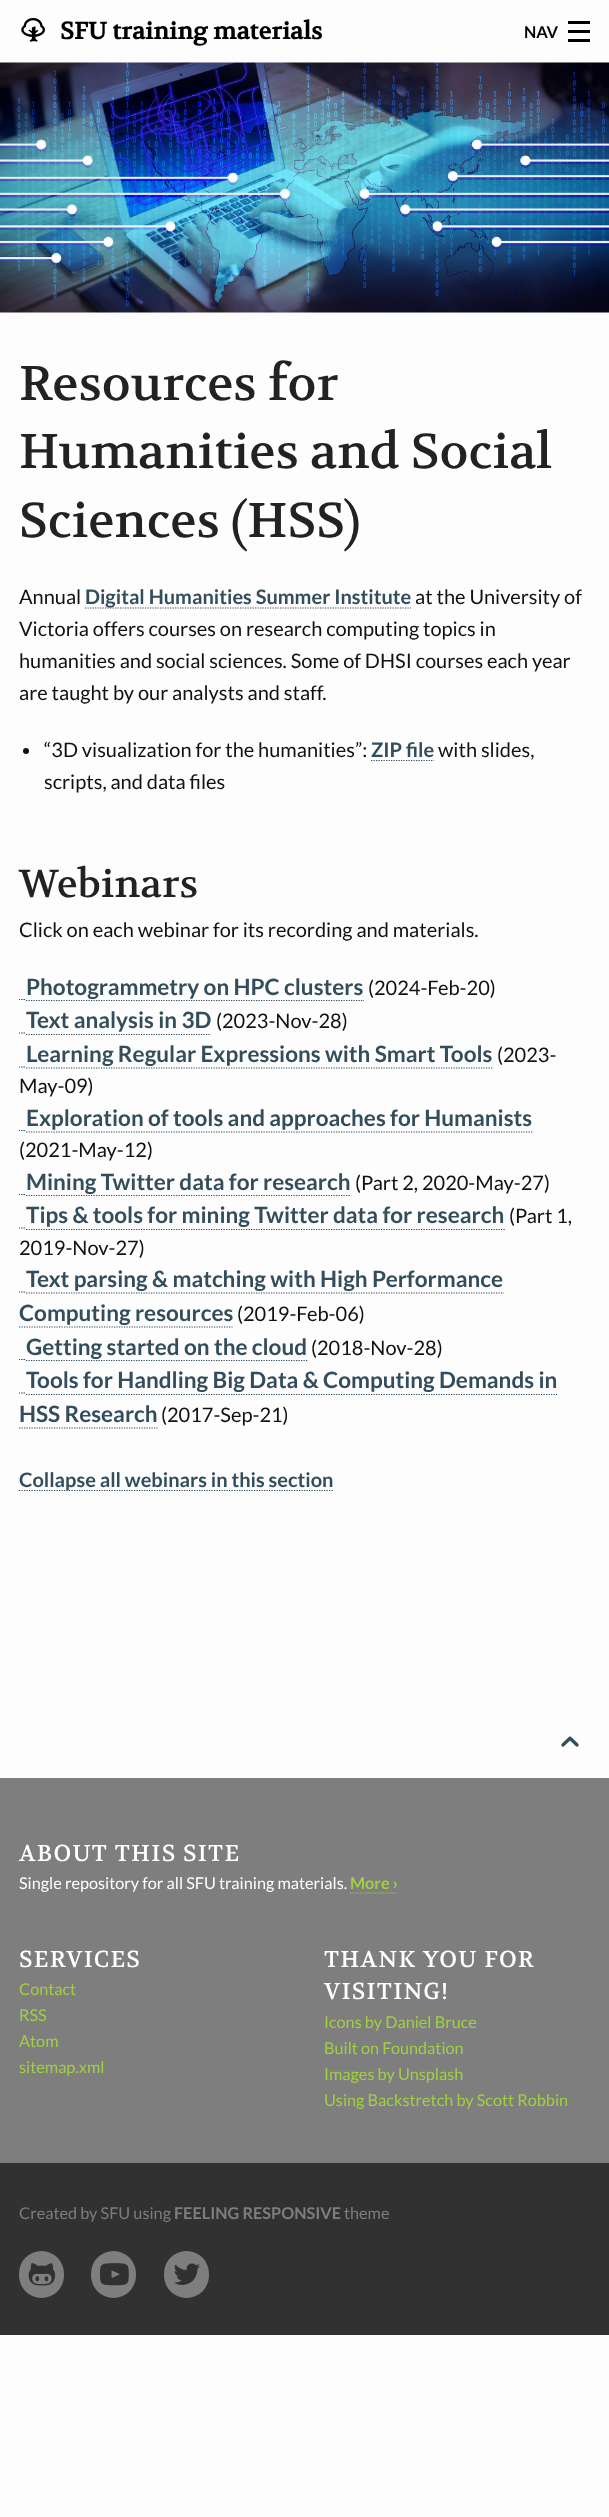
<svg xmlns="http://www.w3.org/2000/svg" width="609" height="2517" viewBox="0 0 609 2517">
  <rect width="100%" height="100%" fill="#fdfdfd"/>
  <image x="21" y="18" width="24" height="24" href="img/1.png"/>
  <path d="M568 39h22v3H568z" fill="#000"/>
  <path d="M568 30h22v3H568z" fill="#000"/>
  <path d="M568 21h22v3H568z" fill="#000"/>
  <image x="0" y="62" width="609" height="251" href="img/2.png"/>
  <path d="M85 608H411" fill="none" stroke="#334d5c" stroke-width="1.2" stroke-dasharray="1.25 1.25"/>
  <circle cx="26" cy="751" r="3" fill="#111"/>
  <path d="M371 760.5H434" fill="none" stroke="#334d5c" stroke-width="1.2" stroke-dasharray="1.25 1.25"/>
  <path d="M19 999.5H20M21 999.5H22.5M23.5 999.5H25" fill="none" stroke="#334d5c" stroke-width="1.2"/>
  <path d="M26 1000.5H364" fill="none" stroke="#334d5c" stroke-width="1.2" stroke-dasharray="1.25 1.25"/>
  <path d="M19 1033H20M21 1033H22.5M23.5 1033H25" fill="none" stroke="#334d5c" stroke-width="1.2"/>
  <path d="M26 1034.5H211" fill="none" stroke="#334d5c" stroke-width="1.2" stroke-dasharray="1.25 1.25"/>
  <path d="M19 1067H20M21 1067H22.5M23.5 1067H25" fill="none" stroke="#334d5c" stroke-width="1.2"/>
  <path d="M26 1068H492.5" fill="none" stroke="#334d5c" stroke-width="1.2" stroke-dasharray="1.25 1.25"/>
  <path d="M19 1130.5H20M21 1130.5H22.5M23.5 1130.5H25" fill="none" stroke="#334d5c" stroke-width="1.2"/>
  <path d="M26 1132H532.5" fill="none" stroke="#334d5c" stroke-width="1.2" stroke-dasharray="1.25 1.25"/>
  <path d="M19 1194.5H20M21 1194.5H22.5M23.5 1194.5H25" fill="none" stroke="#334d5c" stroke-width="1.2"/>
  <path d="M26 1195.5H351" fill="none" stroke="#334d5c" stroke-width="1.2" stroke-dasharray="1.25 1.25"/>
  <path d="M19 1228H20M21 1228H22.5M23.5 1228H25" fill="none" stroke="#334d5c" stroke-width="1.2"/>
  <path d="M26 1229.5H505" fill="none" stroke="#334d5c" stroke-width="1.2" stroke-dasharray="1.25 1.25"/>
  <path d="M19 1292H20M21 1292H22.5M23.5 1292H25" fill="none" stroke="#334d5c" stroke-width="1.2"/>
  <path d="M26 1293H504" fill="none" stroke="#334d5c" stroke-width="1.2" stroke-dasharray="1.25 1.25"/>
  <path d="M19 1327H232.5" fill="none" stroke="#334d5c" stroke-width="1.2" stroke-dasharray="1.25 1.25"/>
  <path d="M19 1359.5H20M21 1359.5H22.5M23.5 1359.5H25" fill="none" stroke="#334d5c" stroke-width="1.2"/>
  <path d="M26 1360.5H307.5" fill="none" stroke="#334d5c" stroke-width="1.2" stroke-dasharray="1.25 1.25"/>
  <path d="M19 1393H20M21 1393H22.5M23.5 1393H25" fill="none" stroke="#334d5c" stroke-width="1.2"/>
  <path d="M26 1394.5H557.5" fill="none" stroke="#334d5c" stroke-width="1.2" stroke-dasharray="1.25 1.25"/>
  <path d="M19 1428H157.5" fill="none" stroke="#334d5c" stroke-width="1.2" stroke-dasharray="1.25 1.25"/>
  <path d="M19 1490.5H334" fill="none" stroke="#334d5c" stroke-width="1.2" stroke-dasharray="1.25 1.25"/>
  <image x="561" y="1736" width="18" height="11" href="img/3.png"/>
  <path d="M0 1778h609v385H0z" fill="#7e7e7e"/>
  <path d="M350 1893H397.5" fill="none" stroke="#a1d044" stroke-width="1.2" stroke-dasharray="1.25 1.25"/>
  <path d="M0 2163h609v172H0z" fill="#313131"/>
  <rect x="19" y="2251" width="45" height="47" rx="22.5" fill="#7e7e7e"/>
  <image x="28" y="2263" width="28" height="23" href="img/4.png"/>
  <rect x="91" y="2251" width="45" height="47" rx="22.5" fill="#7e7e7e"/>
  <image x="100" y="2263" width="29" height="23" href="img/5.png"/>
  <rect x="164" y="2251" width="45" height="47" rx="22.5" fill="#7e7e7e"/>
  <image x="174" y="2263" width="26" height="22" href="img/6.png"/>
  <text x="60" y="39" font-family="Volkhov" font-size="23.75" font-weight="bold" fill="#000">SFU training materials</text>
  <text x="524" y="38" font-family="Lato" font-size="16.25" font-weight="bold" fill="#000">NAV</text>
  <g font-family="Volkhov" font-size="48.75" fill="#222">
    <text x="19" y="400">Resources for</text>
    <text x="19" y="468">Humanities and Social</text>
    <text x="19" y="537">Sciences (HSS)</text>
  </g>
  <text x="19" y="604" font-family="Lato" font-size="20" fill="#111">Annual</text>
  <text x="85" y="604" font-family="Lato" font-size="20" font-weight="bold" fill="#334d5c">Digital Humanities Summer Institute</text>
  <g font-family="Lato" font-size="20" fill="#111">
    <text x="415" y="604">at the University of</text>
    <text x="19" y="636">Victoria offers courses on research computing topics in</text>
    <text x="19" y="668">humanities and social sciences. Some of DHSI courses each year</text>
    <text x="19" y="700">are taught by our analysts and staff.</text>
    <text x="44" y="757">“3D visualization for the humanities”:</text>
  </g>
  <text x="371" y="757" font-family="Lato" font-size="20" font-weight="bold" fill="#334d5c">ZIP file</text>
  <g font-family="Lato" font-size="20" fill="#111">
    <text x="438" y="757">with slides,</text>
    <text x="44" y="789">scripts, and data files</text>
  </g>
  <text x="19" y="897" font-family="Volkhov" font-size="39" fill="#222">Webinars</text>
  <text x="19" y="937" font-family="Lato" font-size="20" fill="#111">Click on each webinar for its recording and materials.</text>
  <text x="26" y="995" font-family="Lato" font-size="22.5" font-weight="bold" fill="#334d5c">Photogrammetry on HPC clusters</text>
  <text x="368" y="995" font-family="Lato" font-size="20" fill="#111">(2024-Feb-20)</text>
  <text x="26" y="1028" font-family="Lato" font-size="22.5" font-weight="bold" fill="#334d5c">Text analysis in 3D</text>
  <text x="216" y="1028" font-family="Lato" font-size="20" fill="#111">(2023-Nov-28)</text>
  <text x="26" y="1062" font-family="Lato" font-size="22.5" font-weight="bold" fill="#334d5c">Learning Regular Expressions with Smart Tools</text>
  <g font-family="Lato" font-size="20" fill="#111">
    <text x="497" y="1062">(2023-</text>
    <text x="19" y="1093">May-09)</text>
  </g>
  <text x="26" y="1126" font-family="Lato" font-size="22.5" font-weight="bold" fill="#334d5c">Exploration of tools and approaches for Humanists</text>
  <text x="19" y="1157" font-family="Lato" font-size="20" fill="#111">(2021-May-12)</text>
  <text x="26" y="1190" font-family="Lato" font-size="22.5" font-weight="bold" fill="#334d5c">Mining Twitter data for research</text>
  <text x="355" y="1190" font-family="Lato" font-size="20" fill="#111">(Part 2, 2020-May-27)</text>
  <text x="26" y="1223" font-family="Lato" font-size="22.5" font-weight="bold" fill="#334d5c">Tips &amp; tools for mining Twitter data for research</text>
  <g font-family="Lato" font-size="20" fill="#111">
    <text x="509" y="1223">(Part 1,</text>
    <text x="19" y="1255">2019-Nov-27)</text>
  </g>
  <g font-family="Lato" font-size="22.5" font-weight="bold" fill="#334d5c">
    <text x="26" y="1287">Text parsing &amp; matching with High Performance</text>
    <text x="19" y="1321">Computing resources</text>
  </g>
  <text x="237" y="1321" font-family="Lato" font-size="20" fill="#111">(2019-Feb-06)</text>
  <text x="26" y="1355" font-family="Lato" font-size="22.5" font-weight="bold" fill="#334d5c">Getting started on the cloud</text>
  <text x="311" y="1355" font-family="Lato" font-size="20" fill="#111">(2018-Nov-28)</text>
  <g font-family="Lato" font-size="22.5" font-weight="bold" fill="#334d5c">
    <text x="26" y="1388">Tools for Handling Big Data &amp; Computing Demands in</text>
    <text x="19" y="1422">HSS Research</text>
  </g>
  <text x="161" y="1422" font-family="Lato" font-size="20" fill="#111">(2017-Sep-21)</text>
  <text x="19" y="1487" font-family="Lato" font-size="20" font-weight="bold" fill="#334d5c">Collapse all webinars in this section</text>
  <text x="19" y="1861" font-family="Volkhov" font-size="23" letter-spacing="1.25" fill="#fff">ABOUT THIS SITE</text>
  <text x="19" y="1889" font-family="Lato" font-size="16.25" fill="#fff">Single repository for all SFU training materials.</text>
  <text x="350" y="1889" font-family="Lato" font-size="16.25" font-weight="bold" fill="#a1d044">More ›</text>
  <text x="19" y="1967" font-family="Volkhov" font-size="23" letter-spacing="1.25" fill="#fff">SERVICES</text>
  <g font-family="Lato" font-size="16.25" fill="#a1d044">
    <text x="19" y="1995">Contact</text>
    <text x="19" y="2021">RSS</text>
    <text x="19" y="2047">Atom</text>
    <text x="19" y="2073">sitemap.xml</text>
  </g>
  <g font-family="Volkhov" font-size="23" letter-spacing="1.25" fill="#fff">
    <text x="324" y="1967">THANK YOU FOR</text>
    <text x="324" y="1999">VISITING!</text>
  </g>
  <g font-family="Lato" font-size="16.25" fill="#a1d044">
    <text x="324" y="2028">Icons by Daniel Bruce</text>
    <text x="324" y="2054">Built on Foundation</text>
    <text x="324" y="2080">Images by Unsplash</text>
    <text x="324" y="2106">Using Backstretch by Scott Robbin</text>
  </g>
  <text x="19" y="2219" font-family="Lato" font-size="16.25" fill="#7e7e7e">Created by SFU using</text>
  <text x="174" y="2219" font-family="Lato" font-size="16.25" font-weight="bold" fill="#7e7e7e">FEELING RESPONSIVE</text>
  <text x="344" y="2219" font-family="Lato" font-size="16.25" fill="#7e7e7e">theme</text>
</svg>
